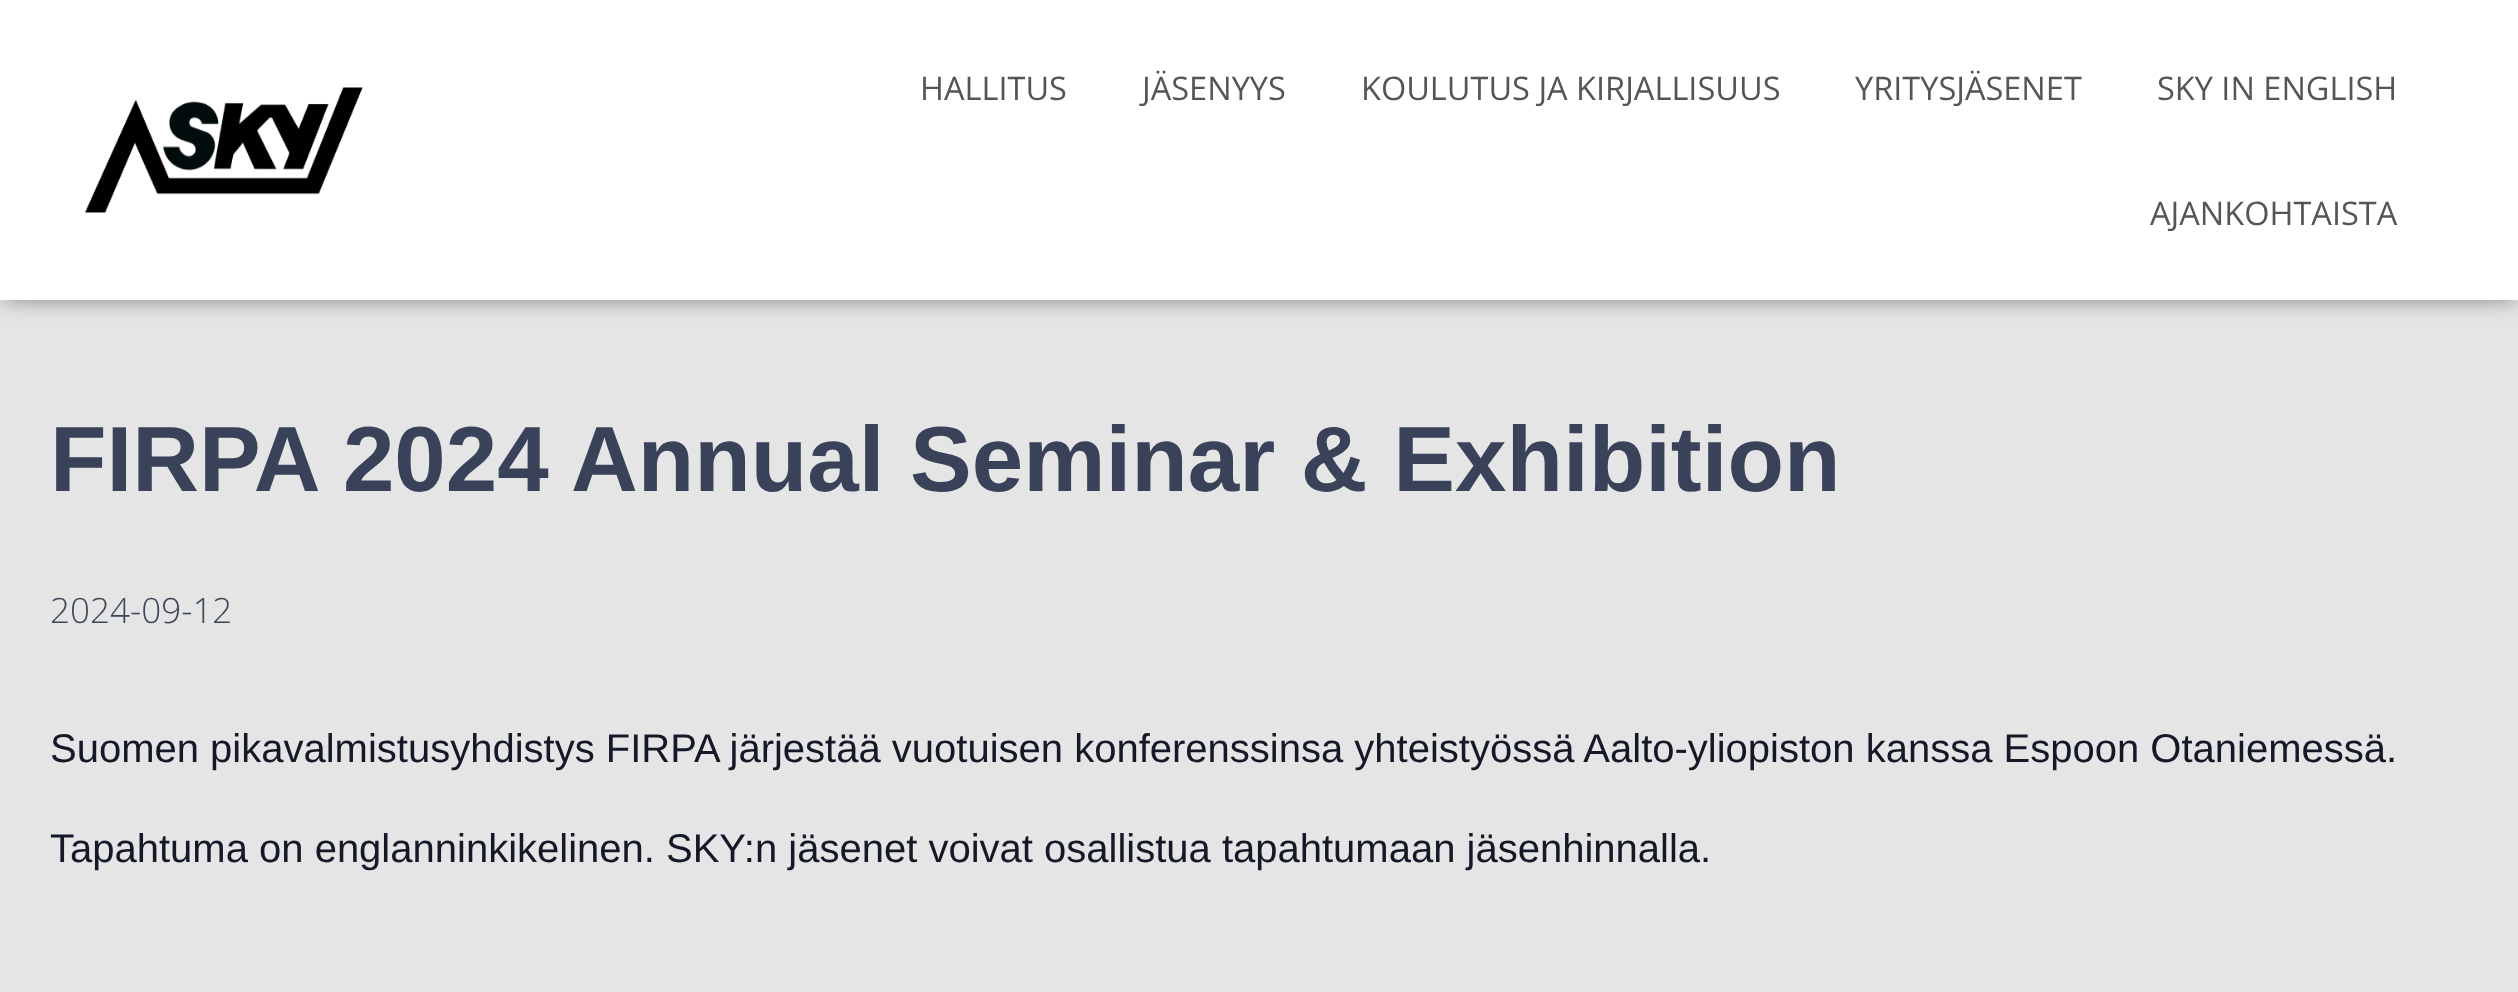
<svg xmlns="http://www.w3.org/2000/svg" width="2518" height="992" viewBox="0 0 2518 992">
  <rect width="100%" height="100%" fill="#e5e5e5"/>
  <path d="M5 15h2510v290H5z" fill="#0000001a" filter="blur(6px)"/>
  <path d="M0 3h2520v300H0z" fill="#0000001f" filter="blur(12.5px)"/>
  <path d="M15 18h2490v270H15z" fill="#0000006b" filter="blur(12.5px)"/>
  <path d="M0 0h2518v300H0z" fill="#fff"/>
  <image x="85" y="87" width="278" height="126" href="img/1.png"/>
  <g font-family="Open Sans" font-size="32.5" fill="#555">
    <text x="920" y="100">HALLITUS</text>
    <text x="1142" y="100">JÄSENYYS</text>
    <text x="1361" y="100">KOULUTUS JA KIRJALLISUUS</text>
    <text x="1855" y="100">YRITYSJÄSENET</text>
    <text x="2157" y="100">SKY IN ENGLISH</text>
    <text x="2150" y="225">AJANKOHTAISTA</text>
  </g>
  <text x="50" y="491" font-family="Liberation Sans" font-size="92.5" font-weight="bold" fill="#3a4259">FIRPA 2024 Annual Seminar &amp; Exhibition</text>
  <text x="50" y="623" font-family="Open Sans" font-size="35" font-weight="300" fill="#3c4858">2024-09-12</text>
  <g font-family="Liberation Sans" font-size="40" fill="#141827">
    <text x="50" y="762">Suomen pikavalmistusyhdistys FIRPA järjestää vuotuisen konferenssinsa yhteistyössä Aalto-yliopiston kanssa Espoon Otaniemessä.</text>
    <text x="50" y="862">Tapahtuma on englanninkikelinen. SKY:n jäsenet voivat osallistua tapahtumaan jäsenhinnalla.</text>
  </g>
</svg>
